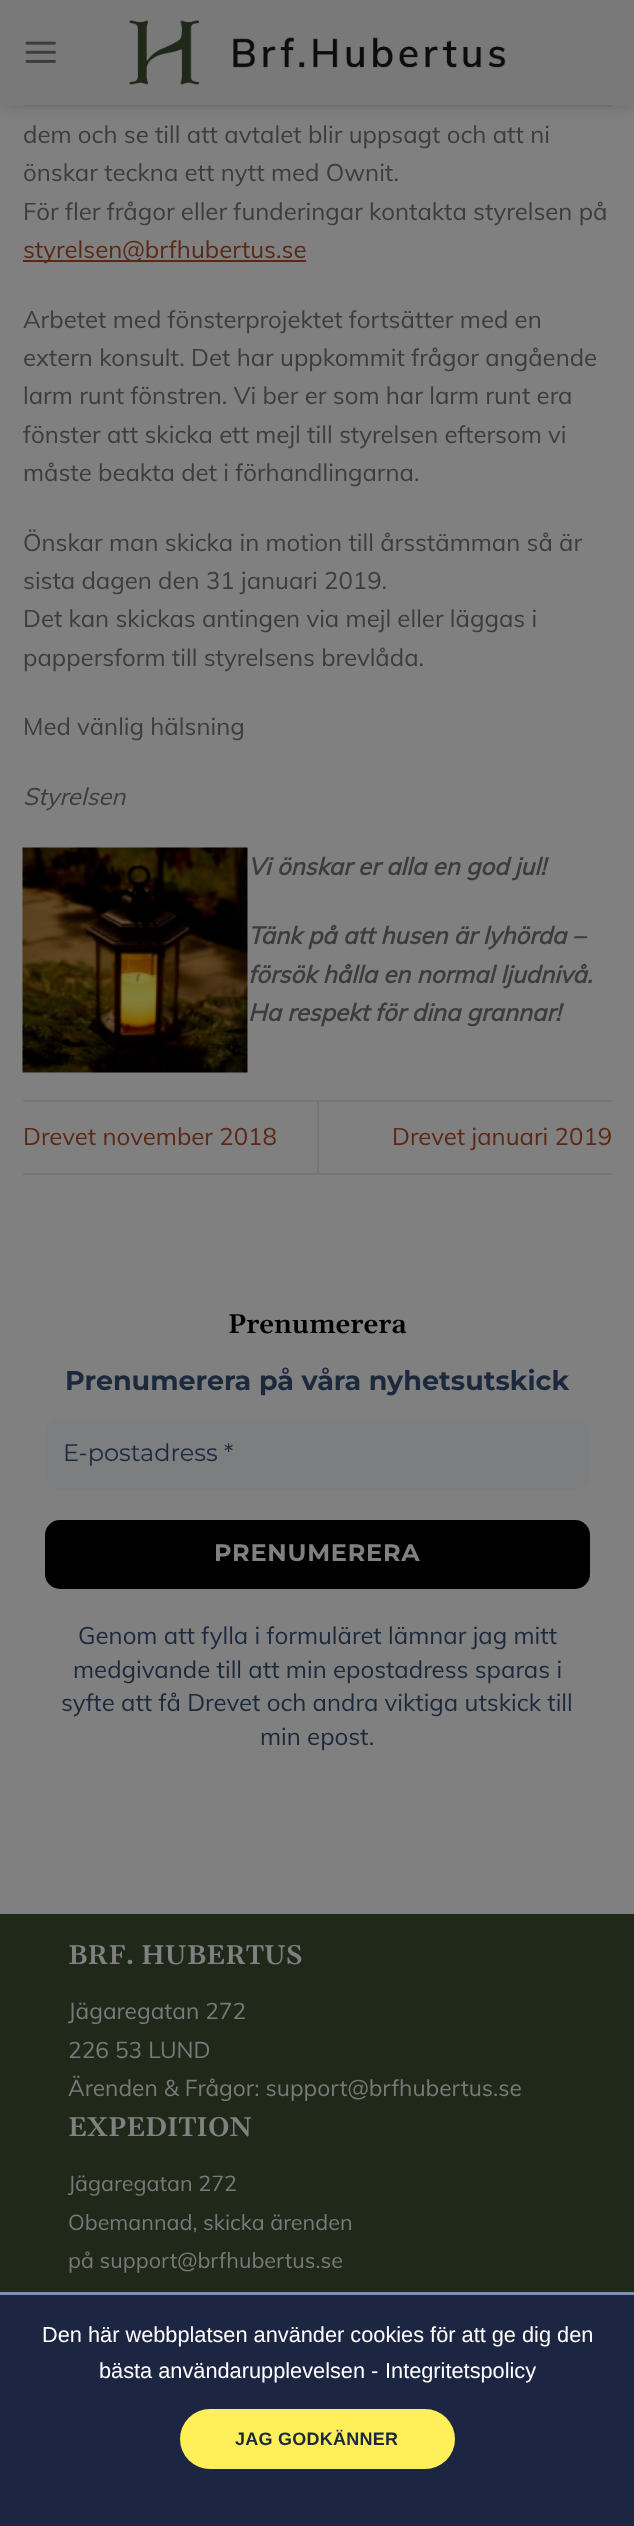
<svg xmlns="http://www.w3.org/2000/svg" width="634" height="2526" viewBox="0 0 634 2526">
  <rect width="100%" height="100%" fill="#808080"/>
  <path d="M2 2h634v105H2z" fill="#00000026" filter="blur(7.5px)"/>
  <path d="M0 0h634v105H0z" fill="#7a7979"/>
  <image x="25" y="41" width="31" height="22" href="img/1.png"/>
  <image x="129" y="20" width="377" height="65" href="img/2.png"/>
  <path d="M23 105h589v2H23z" fill="#3c3c3c1a"/>
  <path d="M23 260h283v2H23z" fill="#5b2815"/>
  <image x="22" y="847" width="226" height="226" href="img/3.png"/>
  <path d="M23 1100h589v2H23z" fill="#767676"/>
  <path d="M23 1173h589v2H23z" fill="#767676"/>
  <path d="M317 1101h2v72H317z" fill="#767676"/>
  <rect x="45" y="1419" width="545" height="71" rx="15" fill="#7c7e80"/>
  <rect x="45" y="1520" width="545" height="69" rx="15" fill="#000"/>
  <path d="M0 1914h634v378H0z" fill="#1f2819"/>
  <path d="M0 2295h634v231H0z" fill="#1c2541"/>
  <path d="M0 2292h634v3H0z" fill="#808fb6"/>
  <rect x="180" y="2409" width="275" height="60" rx="30" fill="#fff05a"/>
  <g font-family="Muli" font-size="24" fill="#3c3c3c">
    <text x="23" y="143">dem och se till att avtalet blir uppsagt och att ni</text>
    <text x="23" y="181">önskar teckna ett nytt med Ownit.</text>
    <text x="23" y="220">För fler frågor eller funderingar kontakta styrelsen på</text>
  </g>
  <text x="23" y="258" font-family="Muli" font-size="24" fill="#5b2815">styrelsen@brfhubertus.se</text>
  <g font-family="Muli" font-size="24" fill="#3c3c3c">
    <text x="23" y="328">Arbetet med fönsterprojektet fortsätter med en</text>
    <text x="23" y="366">extern konsult. Det har uppkommit frågor angående</text>
    <text x="23" y="404">larm runt fönstren. Vi ber er som har larm runt era</text>
    <text x="23" y="443">fönster att skicka ett mejl till styrelsen eftersom vi</text>
    <text x="23" y="481">måste beakta det i förhandlingarna.</text>
    <text x="23" y="551">Önskar man skicka in motion till årsstämman så är</text>
    <text x="23" y="589">sista dagen den 31 januari 2019.</text>
    <text x="23" y="627">Det kan skickas antingen via mejl eller läggas i</text>
    <text x="23" y="666">pappersform till styrelsens brevlåda.</text>
    <text x="23" y="735">Med vänlig hälsning</text>
  </g>
  <text x="23" y="805" font-family="Muli" font-size="24" font-style="italic" fill="#3c3c3c">Styrelsen</text>
  <g font-family="Muli" font-size="24" font-weight="bold" font-style="italic" fill="#3c3c3c">
    <text x="248" y="875">Vi önskar er alla en god jul!</text>
    <text x="248" y="944">Tänk på att husen är lyhörda –</text>
    <text x="248" y="983">försök hålla en normal ljudnivå.</text>
    <text x="248" y="1021">Ha respekt för dina grannar!</text>
  </g>
  <g font-family="Muli" font-size="24" fill="#5b2815">
    <text x="23" y="1145">Drevet november 2018</text>
    <text x="392" y="1145">Drevet januari 2019</text>
  </g>
  <text x="228" y="1333" font-family="Gelasio" font-size="27" font-weight="600" fill="#000">Prenumerera</text>
  <text x="65" y="1390" font-family="Montserrat" font-size="27" font-weight="bold" fill="#1c293d">Prenumerera på våra nyhetsutskick</text>
  <text x="63" y="1461" font-family="Montserrat" font-size="24" fill="#1c293d">E-postadress *</text>
  <text x="214" y="1561" font-family="Montserrat" font-size="24" font-weight="bold" letter-spacing="0.75" fill="#808080">PRENUMERERA</text>
  <g font-family="Muli" font-size="24" fill="#1c293d">
    <text x="78" y="1644">Genom att fylla i formuläret lämnar jag mitt</text>
    <text x="73" y="1678">medgivande till att min epostadress sparas i</text>
    <text x="61" y="1711">syfte att få Drevet och andra viktiga utskick till</text>
    <text x="260" y="1745">min epost.</text>
  </g>
  <text x="68" y="1964" font-family="Gelasio" font-size="27" font-weight="600" fill="#808080">BRF. HUBERTUS</text>
  <g font-family="Muli" font-size="22.75" fill="#797979">
    <text x="68" y="2019">Jägaregatan 272</text>
    <text x="68" y="2058">226 53 LUND</text>
    <text x="68" y="2096">Ärenden &amp; Frågor: support@brfhubertus.se</text>
  </g>
  <text x="68" y="2136" font-family="Gelasio" font-size="27" font-weight="600" fill="#808080">EXPEDITION</text>
  <g font-family="Muli" font-size="21.6" fill="#797979">
    <text x="68" y="2191">Jägaregatan 272</text>
    <text x="68" y="2230">Obemannad, skicka ärenden</text>
    <text x="68" y="2268">på support@brfhubertus.se</text>
  </g>
  <g font-family="Liberation Sans" font-size="21.75" fill="#fff">
    <text x="42" y="2342">Den här webbplatsen använder cookies för att ge dig den</text>
    <text x="99" y="2378">bästa användarupplevelsen -</text>
    <text x="385" y="2378">Integritetspolicy</text>
  </g>
  <text x="235" y="2445" font-family="Liberation Sans" font-size="18" font-weight="bold" letter-spacing="0.25" fill="#1c293d">JAG GODKÄNNER</text>
</svg>
